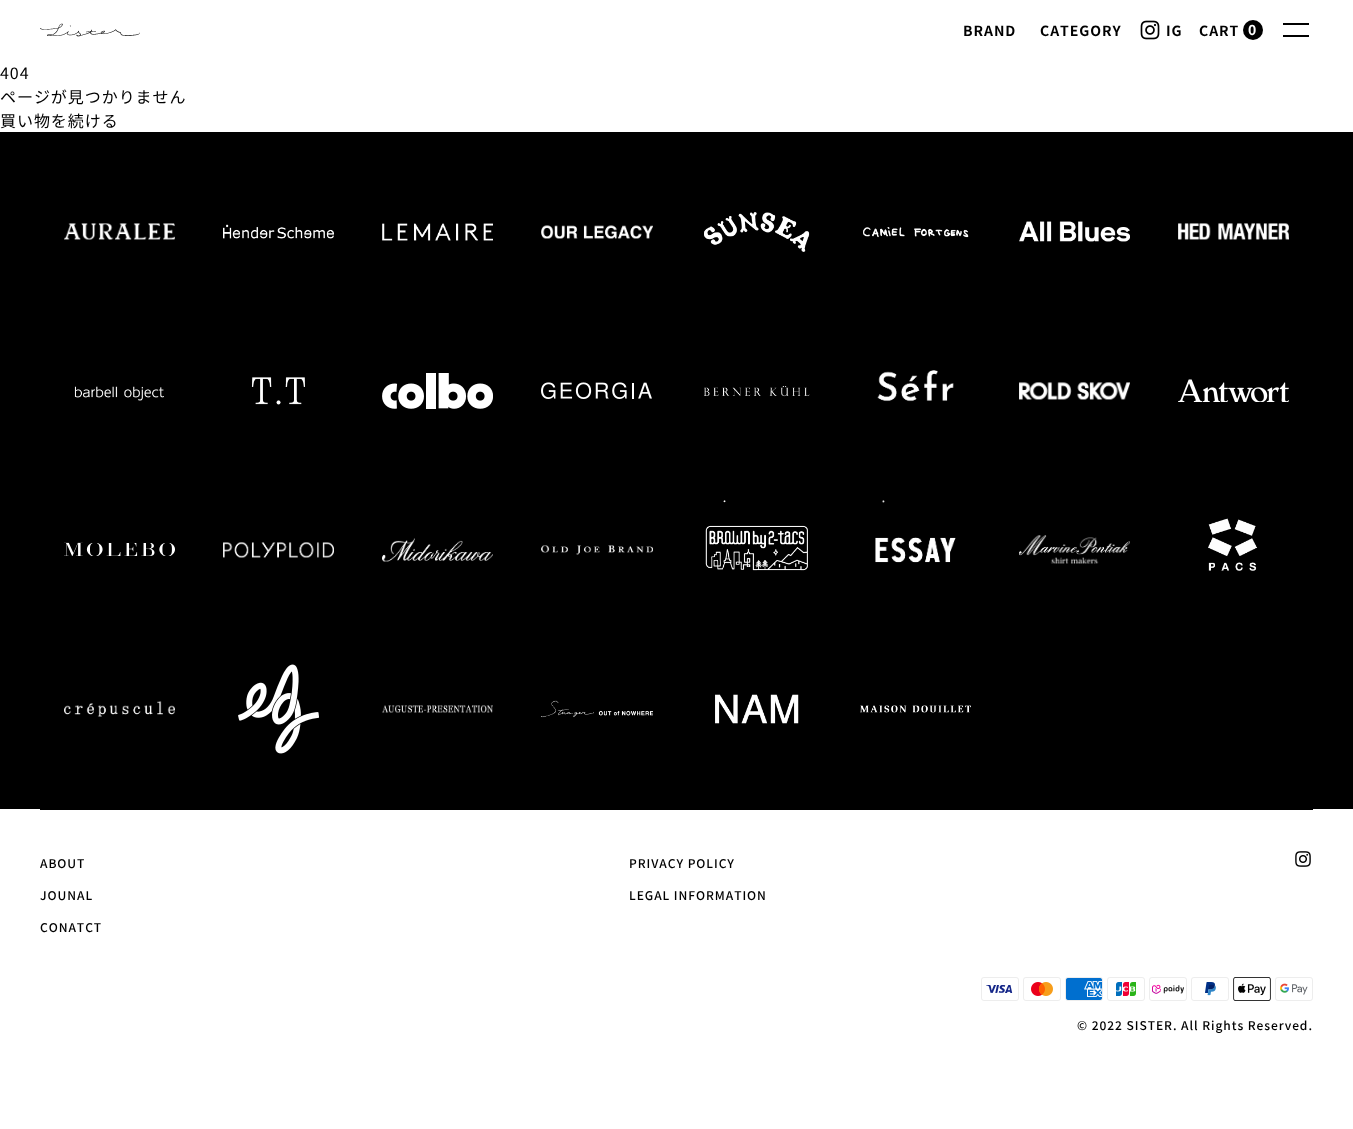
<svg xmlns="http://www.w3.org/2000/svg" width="1353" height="1129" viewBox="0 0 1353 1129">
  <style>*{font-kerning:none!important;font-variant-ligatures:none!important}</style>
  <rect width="100%" height="100%" fill="#fff"/>
  <image x="40" y="23" width="100" height="14" href="img/1.png"/>
  <image x="1140" y="20" width="20" height="20" href="img/2.png"/>
  <circle cx="1253" cy="30" r="10" fill="#000"/>
  <path d="M1283 23h26v2H1283z" fill="#000"/>
  <path d="M1283 35h26v2H1283z" fill="#000"/>
  <path d="M0 132h1353v677H0z" fill="#000"/>
  <image x="64" y="223" width="111" height="17" href="img/3.png"/>
  <image x="223" y="224" width="111" height="15" href="img/4.png"/>
  <image x="382" y="223" width="111" height="18" href="img/5.png"/>
  <image x="541" y="225" width="112" height="14" href="img/6.png"/>
  <image x="704" y="212" width="106" height="40" href="img/7.png"/>
  <image x="863" y="227" width="106" height="11" href="img/8.png"/>
  <image x="1019" y="221" width="111" height="21" href="img/9.png"/>
  <image x="1178" y="223" width="111" height="17" href="img/10.png"/>
  <image x="74" y="386" width="90" height="15" href="img/11.png"/>
  <image x="251" y="377" width="54" height="28" href="img/12.png"/>
  <image x="382" y="373" width="111" height="36" href="img/13.png"/>
  <image x="541" y="382" width="111" height="17" href="img/14.png"/>
  <image x="704" y="386" width="106" height="11" href="img/15.png"/>
  <image x="877" y="370" width="77" height="32" href="img/16.png"/>
  <image x="1019" y="382" width="111" height="18" href="img/17.png"/>
  <image x="1178" y="379" width="111" height="23" href="img/18.png"/>
  <image x="64" y="542" width="111" height="14" href="img/19.png"/>
  <image x="223" y="542" width="111" height="16" href="img/20.png"/>
  <image x="382" y="538" width="111" height="24" href="img/21.png"/>
  <image x="541" y="545" width="112" height="10" href="img/22.png"/>
  <image x="705" y="500" width="103" height="71" href="img/23.png"/>
  <image x="875" y="500" width="81" height="63" href="img/24.png"/>
  <image x="1019" y="535" width="111" height="29" href="img/25.png"/>
  <image x="1208" y="518" width="50" height="53" href="img/26.png"/>
  <image x="64" y="701" width="111" height="16" href="img/27.png"/>
  <image x="238" y="664" width="81" height="90" href="img/28.png"/>
  <image x="382" y="705" width="111" height="8" href="img/29.png"/>
  <image x="541" y="700" width="112" height="18" href="img/30.png"/>
  <image x="715" y="694" width="84" height="30" href="img/31.png"/>
  <image x="860" y="705" width="111" height="8" href="img/32.png"/>
  <path d="M40 809h1273v1H40z" fill="#000"/>
  <image x="1295" y="851" width="16" height="16" href="img/33.png"/>
  <image x="981" y="977" width="38" height="24" href="img/34.png"/>
  <image x="1023" y="977" width="38" height="24" href="img/35.png"/>
  <image x="1065" y="977" width="38" height="24" href="img/36.png"/>
  <image x="1107" y="977" width="38" height="24" href="img/37.png"/>
  <image x="1149" y="977" width="38" height="24" href="img/38.png"/>
  <image x="1191" y="977" width="38" height="24" href="img/39.png"/>
  <image x="1233" y="977" width="38" height="24" href="img/40.png"/>
  <image x="1275" y="977" width="38" height="24" href="img/41.png"/>
  <g font-family="Noto Sans JP" font-size="14" font-weight="bold" letter-spacing="0.95" fill="#000">
    <text x="963" y="36">BRAND</text>
    <text x="1040" y="36">CATEGORY</text>
    <text x="1166" y="36">IG</text>
    <text x="1199" y="36">CART</text>
  </g>
  <text x="1248" y="35" font-family="Noto Sans JP" font-size="14" font-weight="bold" letter-spacing="0.95" fill="#fff">0</text>
  <g font-family="Noto Sans JP" font-size="16" letter-spacing="0.95" fill="#000">
    <text x="0" y="79">404</text>
    <text x="0" y="103">ページが見つかりません</text>
    <text x="0" y="127">買い物を続ける</text>
  </g>
  <g font-family="Noto Sans JP" font-size="12" font-weight="500" letter-spacing="0.95" fill="#000">
    <text x="40" y="868">ABOUT</text>
    <text x="40" y="900">JOUNAL</text>
    <text x="40" y="932">CONATCT</text>
    <text x="629" y="868">PRIVACY POLICY</text>
    <text x="629" y="900">LEGAL INFORMATION</text>
    <text x="1077" y="1030">© 2022 SISTER. All Rights Reserved.</text>
  </g>
</svg>
